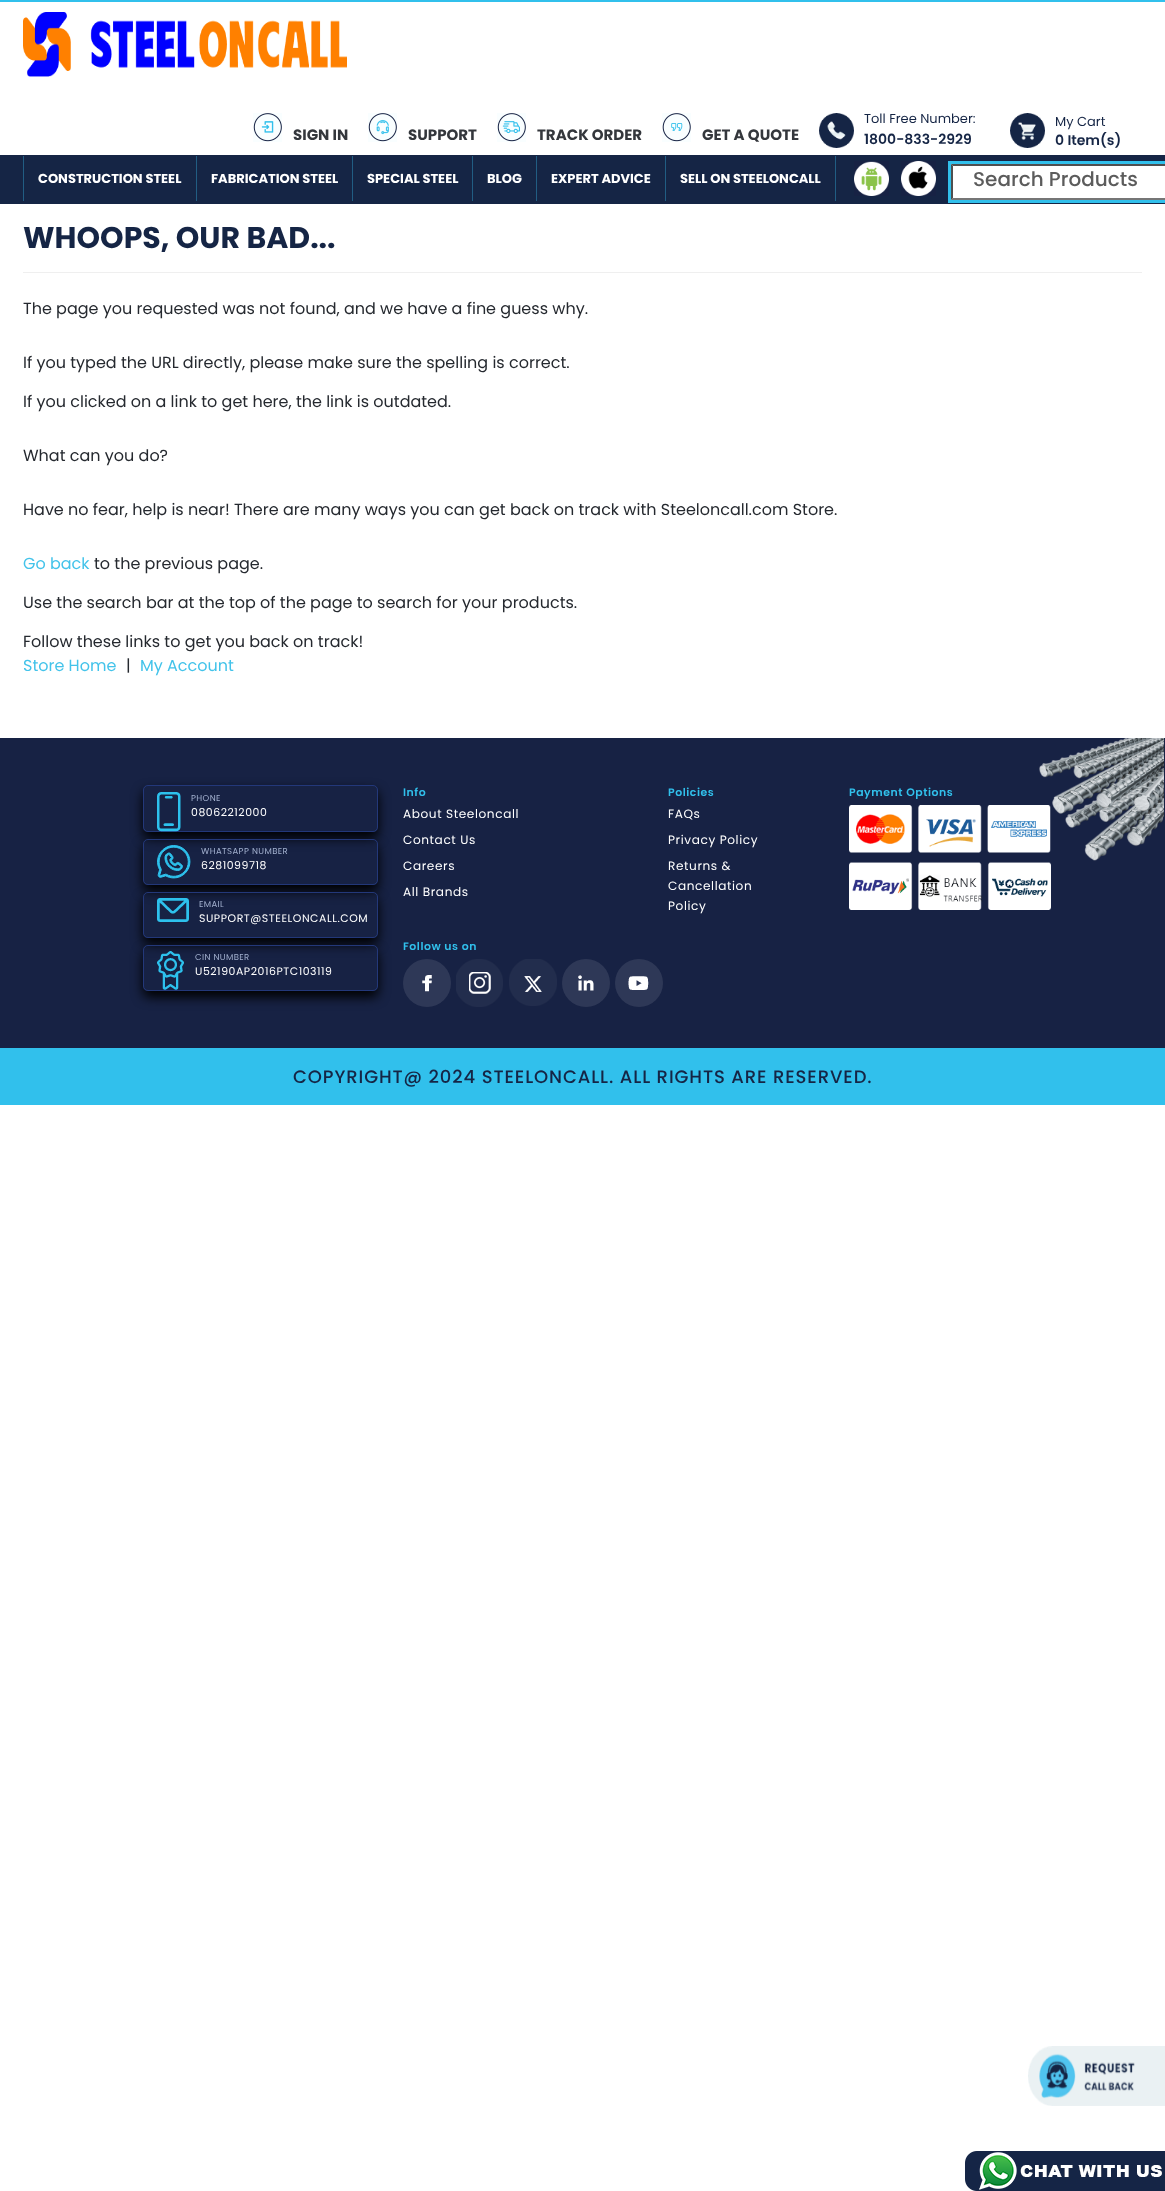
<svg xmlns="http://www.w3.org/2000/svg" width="1165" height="2191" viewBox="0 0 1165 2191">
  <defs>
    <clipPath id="clip1"><path d="M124 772H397V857H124ZM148 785H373C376 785 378 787 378 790V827C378 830 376 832 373 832H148C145 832 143 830 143 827V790C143 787 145 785 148 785Z" clip-rule="evenodd"/></clipPath>
    <clipPath id="clip2"><path d="M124 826H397V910H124ZM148 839H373C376 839 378 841 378 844V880C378 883 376 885 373 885H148C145 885 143 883 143 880V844C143 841 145 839 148 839Z" clip-rule="evenodd"/></clipPath>
    <clipPath id="clip3"><path d="M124 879H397V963H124ZM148 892H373C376 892 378 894 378 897V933C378 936 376 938 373 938H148C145 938 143 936 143 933V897C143 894 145 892 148 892Z" clip-rule="evenodd"/></clipPath>
    <clipPath id="clip4"><path d="M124 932H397V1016H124ZM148 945H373C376 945 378 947 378 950V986C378 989 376 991 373 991H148C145 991 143 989 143 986V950C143 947 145 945 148 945Z" clip-rule="evenodd"/></clipPath>
  </defs>
  <rect width="100%" height="100%" fill="#fff"/>
  <path d="M0 0h1165v2H0z" fill="#31c0ec"/>
  <image x="23" y="12" width="324" height="65" href="img/1.png"/>
  <image x="253" y="113" width="29" height="29" href="img/2.png"/>
  <image x="368" y="113" width="29" height="29" href="img/3.png"/>
  <image x="497" y="113" width="29" height="29" href="img/4.png"/>
  <image x="662" y="113" width="29" height="29" href="img/5.png"/>
  <image x="819" y="113" width="35" height="35" href="img/6.png"/>
  <image x="1010" y="113" width="35" height="35" href="img/7.png"/>
  <path d="M0 155h1165v49H0z" fill="#152545"/>
  <path d="M23 156h1v45H23z" fill="#215d83"/>
  <path d="M196 156h1v45H196z" fill="#215d83"/>
  <path d="M352 156h1v45H352z" fill="#215d83"/>
  <path d="M472 156h1v45H472z" fill="#215d83"/>
  <path d="M536 156h1v45H536z" fill="#215d83"/>
  <path d="M835 156h1v45H835z" fill="#215d83"/>
  <path d="M665 156h1v45H665z" fill="#215d83"/>
  <image x="854" y="161" width="35" height="35" href="img/8.png"/>
  <image x="901" y="161" width="35" height="35" href="img/9.png"/>
  <path d="M949.5 162.5h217v39H949.5z" fill="none" stroke="#31c0ec" stroke-width="3"/>
  <path d="M951 164h214v36H951z" fill="#fff"/>
  <path d="M951 164H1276L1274 166H953Z" fill="#4f4f4f"/>
  <path d="M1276 200H951L953 198H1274Z" fill="#767676"/>
  <path d="M951 200V164L953 166V198Z" fill="#4f4f4f"/>
  <path d="M23 272h1119v1H23z" fill="#efefef"/>
  <path d="M0 738h1165v310H0z" fill="#172244"/>
  <path d="M0 1048h1165v57H0z" fill="#31c0ec"/>
  <image x="403" y="959" width="48" height="48" href="img/10.png"/>
  <image x="456" y="959" width="47" height="48" href="img/11.png"/>
  <image x="509" y="959" width="48" height="47" href="img/12.png"/>
  <image x="562" y="959" width="48" height="48" href="img/13.png"/>
  <image x="615" y="959" width="48" height="48" href="img/14.png"/>
  <image x="1039" y="738" width="125" height="123" href="img/20.png"/>
  <image x="849" y="805" width="202" height="105" href="img/15.png"/>
  <g clip-path="url(#clip1)">
    <rect x="143" y="791" width="235" height="47" rx="5" fill="#000" filter="blur(6px)"/>
  </g>
  <rect x="143.5" y="785.5" width="234" height="46" rx="4.5" fill="none" stroke="#23387a"/>
  <g clip-path="url(#clip2)">
    <rect x="143" y="845" width="235" height="46" rx="5" fill="#000" filter="blur(6px)"/>
  </g>
  <image x="157" y="792" width="24" height="40" href="img/16.png"/>
  <rect x="143.5" y="839.5" width="234" height="45" rx="4.5" fill="none" stroke="#23387a"/>
  <image x="157" y="845" width="34" height="34" href="img/17.png"/>
  <g clip-path="url(#clip3)">
    <rect x="143" y="898" width="235" height="46" rx="5" fill="#000" filter="blur(6px)"/>
  </g>
  <rect x="143.5" y="892.5" width="234" height="45" rx="4.5" fill="none" stroke="#23387a"/>
  <image x="157" y="898" width="32" height="24" href="img/18.png"/>
  <g clip-path="url(#clip4)">
    <rect x="143" y="951" width="235" height="46" rx="5" fill="#000" filter="blur(6px)"/>
  </g>
  <rect x="143.5" y="945.5" width="234" height="45" rx="4.5" fill="none" stroke="#23387a"/>
  <image x="157" y="951" width="27" height="39" href="img/19.png"/>
  <image x="1028" y="2046" width="137" height="60" href="img/21.png"/>
  <image x="965" y="2151" width="200" height="40" href="img/22.png"/>
  <g font-family="Poppins" font-size="15" font-weight="bold" fill="#34373c">
    <text x="293" y="140">SIGN IN</text>
    <text x="408" y="140">SUPPORT</text>
    <text x="537" y="140">TRACK ORDER</text>
    <text x="702" y="140">GET A QUOTE</text>
  </g>
  <text x="864" y="123" font-family="Poppins" font-size="13" fill="#152545">Toll Free Number:</text>
  <text x="864" y="144" font-family="Poppins" font-size="14" font-weight="600" fill="#152545">1800-833-2929</text>
  <text x="1055" y="126" font-family="Poppins" font-size="13" fill="#152545">My Cart</text>
  <text x="1055" y="145" font-family="Poppins" font-size="14" font-weight="600" fill="#152545">0 Item(s)</text>
  <g font-family="Poppins" font-size="13" font-weight="bold" fill="#fff">
    <text x="38" y="183">CONSTRUCTION STEEL</text>
    <text x="211" y="183">FABRICATION STEEL</text>
    <text x="367" y="183">SPECIAL STEEL</text>
    <text x="487" y="183">BLOG</text>
    <text x="551" y="183">EXPERT ADVICE</text>
    <text x="680" y="183">SELL ON STEELONCALL</text>
  </g>
  <text x="973" y="186" font-family="Poppins" font-size="20" font-weight="500" fill="#5c5c5c">Search Products</text>
  <text x="23" y="248" font-family="Poppins" font-size="30" font-weight="bold" fill="#152545">WHOOPS, OUR BAD...</text>
  <g font-family="Poppins" font-size="16" fill="#25292f">
    <text x="23" y="314">The page you requested was not found, and we have a fine guess why.</text>
    <text x="23" y="368">If you typed the URL directly, please make sure the spelling is correct.</text>
    <text x="23" y="407">If you clicked on a link to get here, the link is outdated.</text>
    <text x="23" y="461">What can you do?</text>
    <text x="23" y="515">Have no fear, help is near! There are many ways you can get back on track with Steeloncall.com Store.</text>
  </g>
  <text x="23" y="569" font-family="Poppins" font-size="16" fill="#43c3ea">Go back</text>
  <g font-family="Poppins" font-size="16" fill="#25292f">
    <text x="94" y="569">to the previous page.</text>
    <text x="23" y="608">Use the search bar at the top of the page to search for your products.</text>
    <text x="23" y="647">Follow these links to get you back on track!</text>
  </g>
  <text x="23" y="671" font-family="Poppins" font-size="16" fill="#43c3ea">Store Home</text>
  <text x="126" y="671" font-family="Poppins" font-size="16" fill="#25292f">|</text>
  <text x="140" y="671" font-family="Poppins" font-size="16" fill="#43c3ea">My Account</text>
  <text x="403" y="796" font-family="Poppins" font-size="10.9" font-weight="600" letter-spacing="0.55" fill="#31c0ec">Info</text>
  <g font-family="Poppins" font-size="12.1" letter-spacing="0.6" fill="#fff">
    <text x="403" y="818">About Steeloncall</text>
    <text x="403" y="844">Contact Us</text>
    <text x="403" y="870">Careers</text>
    <text x="403" y="896">All Brands</text>
  </g>
  <g font-family="Poppins" font-size="10.9" font-weight="600" letter-spacing="0.55" fill="#31c0ec">
    <text x="403" y="950">Follow us on</text>
    <text x="668" y="796">Policies</text>
  </g>
  <g font-family="Poppins" font-size="12.1" letter-spacing="0.6" fill="#fff">
    <text x="668" y="818">FAQs</text>
    <text x="668" y="844">Privacy Policy</text>
    <text x="668" y="870">Returns &amp;</text>
    <text x="668" y="890">Cancellation</text>
    <text x="668" y="910">Policy</text>
  </g>
  <text x="849" y="796" font-family="Poppins" font-size="10.9" font-weight="600" letter-spacing="0.55" fill="#31c0ec">Payment Options</text>
  <text x="191" y="801" font-family="Poppins" font-size="8.5" letter-spacing="0.4" fill="#a3b1cf">PHONE</text>
  <text x="191" y="816" font-family="Poppins" font-size="10.9" letter-spacing="0.55" fill="#fff">08062212000</text>
  <text x="201" y="854" font-family="Poppins" font-size="8.5" letter-spacing="0.4" fill="#a3b1cf">WHATSAPP NUMBER</text>
  <text x="201" y="869" font-family="Poppins" font-size="10.9" letter-spacing="0.55" fill="#fff">6281099718</text>
  <text x="199" y="907" font-family="Poppins" font-size="8.5" letter-spacing="0.4" fill="#a3b1cf">EMAIL</text>
  <text x="199" y="922" font-family="Poppins" font-size="10.9" letter-spacing="0.55" fill="#fff">SUPPORT@STEELONCALL.COM</text>
  <text x="195" y="960" font-family="Poppins" font-size="8.5" letter-spacing="0.4" fill="#a3b1cf">CIN NUMBER</text>
  <text x="195" y="975" font-family="Poppins" font-size="10.9" letter-spacing="0.55" fill="#fff">U52190AP2016PTC103119</text>
  <text x="293" y="1083" font-family="Poppins" font-size="18" font-weight="500" letter-spacing="0.9" fill="#152545">COPYRIGHT@ 2024 STEELONCALL. ALL RIGHTS ARE RESERVED.</text>
</svg>
